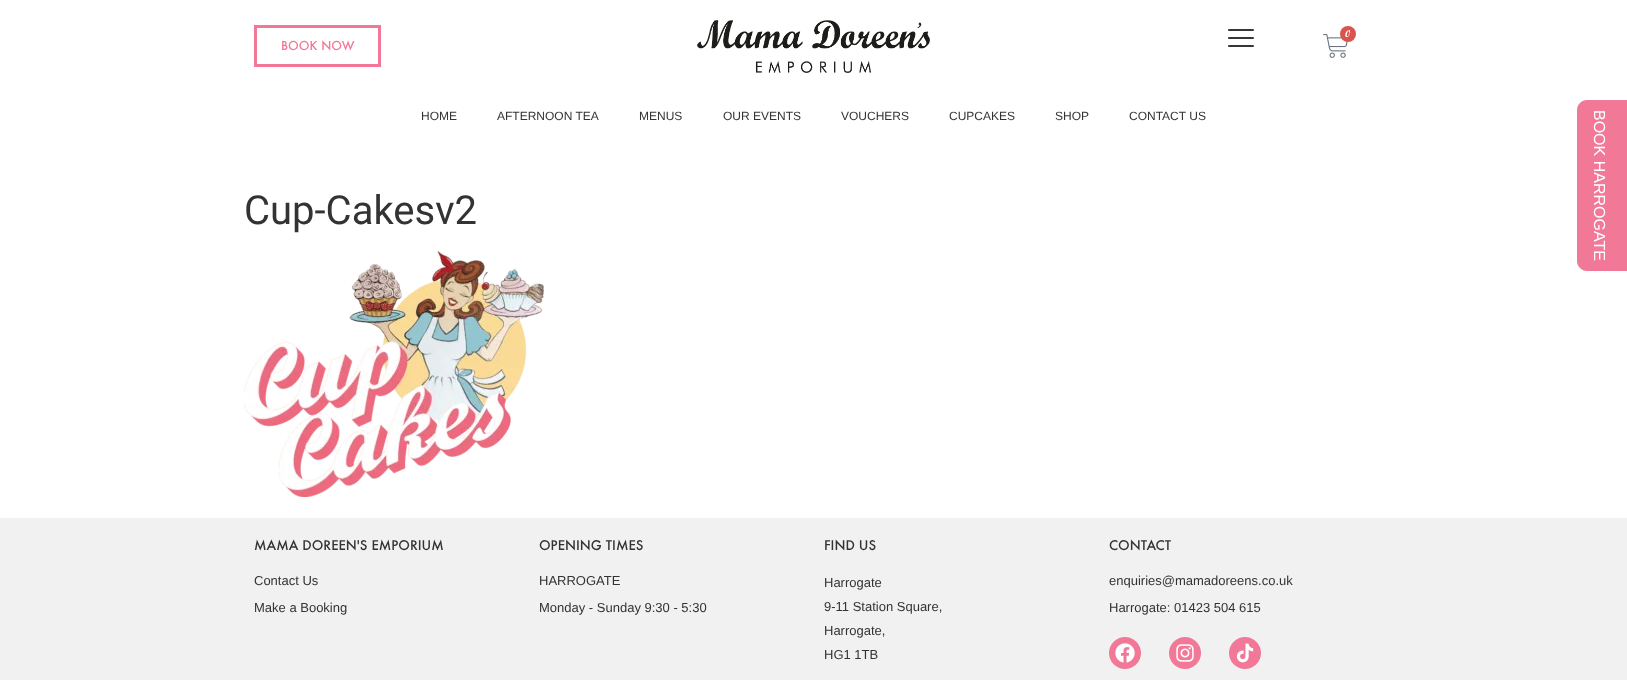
<svg xmlns="http://www.w3.org/2000/svg" width="1627" height="680" viewBox="0 0 1627 680">
  <rect width="100%" height="100%" fill="#fff"/>
  <image x="697" y="20" width="233" height="53" href="img/1.png"/>
  <rect x="1228" y="37" width="26" height="2" rx="1" fill="#363636"/>
  <rect x="1228" y="29" width="26" height="2" rx="1" fill="#363636"/>
  <rect x="1228" y="45" width="26" height="2" rx="1" fill="#363636"/>
  <image x="1323" y="34" width="25" height="24" href="img/2.png"/>
  <circle cx="1348" cy="34" r="8" fill="#d9534f"/>
  <path d="M255.5 26.5H379.5V65.5H255.5Z" fill="none" stroke="#f27898" stroke-width="3"/>
  <path d="M1587 100H1627V271H1587C1581.5 271 1577 266.5 1577 261V110C1577 104.5 1581.5 100 1587 100Z" fill="#f27898"/>
  <image x="244" y="251" width="300" height="246" href="img/3.png"/>
  <path d="M0 518h1627v162H0z" fill="#f1f1f1"/>
  <circle cx="1125" cy="653" r="16" fill="#f27898"/>
  <image x="1115" y="643" width="20" height="20" href="img/4.png"/>
  <circle cx="1185" cy="653" r="16" fill="#f27898"/>
  <image x="1176" y="644" width="18" height="18" href="img/5.png"/>
  <circle cx="1245" cy="653" r="16" fill="#f27898"/>
  <image x="1236" y="643" width="18" height="20" href="img/6.png"/>
  <text x="1345" y="37" font-family="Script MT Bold" font-size="10" font-weight="bold" fill="#fff">0</text>
  <text x="281" y="50" font-family="Futura" font-size="12" font-weight="500" fill="#f27898">BOOK NOW</text>
  <g font-family="Liberation Sans" font-size="12" fill="#333">
    <text x="421" y="120">HOME</text>
    <text x="497" y="120">AFTERNOON TEA</text>
    <text x="639" y="120">MENUS</text>
    <text x="723" y="120">OUR EVENTS</text>
    <text x="841" y="120">VOUCHERS</text>
    <text x="949" y="120">CUPCAKES</text>
    <text x="1055" y="120">SHOP</text>
    <text x="1129" y="120">CONTACT US</text>
  </g>
  <text x="1594" y="110" transform="rotate(90 1594 110)" font-family="Liberation Sans" font-size="16" fill="#fff">BOOK HARROGATE</text>
  <text x="244" y="224" font-family="Roboto" font-size="40" fill="#333">Cup-Cakesv2</text>
  <text x="254" y="550" font-family="Futura" font-size="13" font-weight="500" fill="#333">MAMA DOREEN'S EMPORIUM</text>
  <g font-family="Liberation Sans" font-size="13" fill="#333">
    <text x="254" y="585">Contact Us</text>
    <text x="254" y="612">Make a Booking</text>
  </g>
  <text x="539" y="550" font-family="Futura" font-size="13" font-weight="500" fill="#333">OPENING TIMES</text>
  <g font-family="Liberation Sans" font-size="13" fill="#333">
    <text x="539" y="585">HARROGATE</text>
    <text x="539" y="612">Monday - Sunday 9:30 - 5:30</text>
  </g>
  <text x="824" y="550" font-family="Futura" font-size="13" font-weight="500" fill="#333">FIND US</text>
  <g font-family="Liberation Sans" font-size="13" fill="#333">
    <text x="824" y="587">Harrogate</text>
    <text x="824" y="611">9-11 Station Square,</text>
    <text x="824" y="635">Harrogate,</text>
    <text x="824" y="659">HG1 1TB</text>
  </g>
  <text x="1109" y="550" font-family="Futura" font-size="13" font-weight="500" fill="#333">CONTACT</text>
  <g font-family="Liberation Sans" font-size="13" fill="#333">
    <text x="1109" y="585">enquiries@mamadoreens.co.uk</text>
    <text x="1109" y="612">Harrogate: 01423 504 615</text>
  </g>
</svg>
